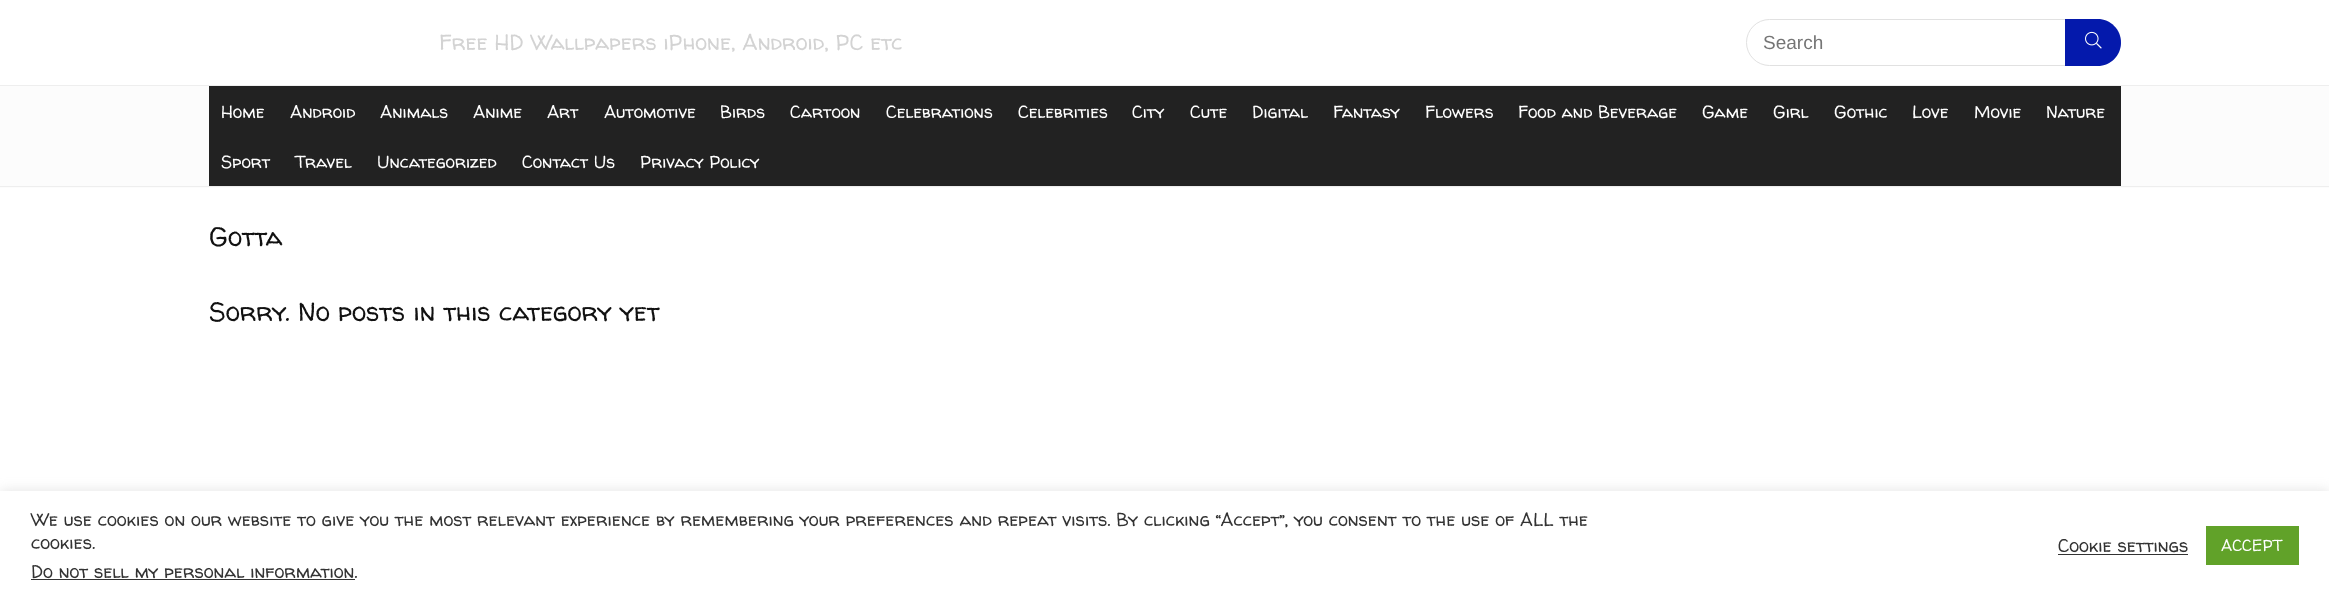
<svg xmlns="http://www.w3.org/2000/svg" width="2329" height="600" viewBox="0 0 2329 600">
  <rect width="100%" height="100%" fill="#fff"/>
  <rect x="1746.5" y="19.5" width="374" height="46" rx="23" fill="none" stroke="#e1e1e1"/>
  <path d="M2065 19H2097.5C2110.5 19 2121 29.5 2121 42.5C2121 55.5 2110.5 66 2097.5 66H2065Z" fill="#0419ac"/>
  <image x="2085" y="31" width="17" height="18" href="img/1.png"/>
  <path d="M0 86h2329v102H0z" fill="#fcfcfc"/>
  <path d="M0 85h2329v1H0z" fill="#eee"/>
  <path d="M0 186h2329v1H0z" fill="#eee"/>
  <path d="M209 86h1912v100H209z" fill="#222"/>
  <path d="M0 490h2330v109H0z" fill="#acabab4d" filter="blur(6px)"/>
  <path d="M0 491h2329v109H0z" fill="#fff"/>
  <path d="M31 579h324v1H31z" fill="#333"/>
  <path d="M2058 554h130v1H2058z" fill="#333"/>
  <path d="M2206 526h93v39H2206z" fill="#61a229"/>
  <text x="439" y="50" font-family="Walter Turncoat" font-size="21.9" fill="#d3d3d3">Free HD Wallpapers iPhone, Android, PC etc</text>
  <text x="1763" y="49" font-family="Liberation Sans" font-size="19" fill="#757575">Search</text>
  <g font-family="Walter Turncoat" font-size="17.5" fill="#fff">
    <text x="221" y="118">Home</text>
    <text x="290" y="118">Android</text>
    <text x="380" y="118">Animals</text>
    <text x="473" y="118">Anime</text>
    <text x="547" y="118">Art</text>
    <text x="604" y="118">Automotive</text>
    <text x="720" y="118">Birds</text>
    <text x="790" y="118">Cartoon</text>
    <text x="886" y="118">Celebrations</text>
    <text x="1018" y="118">Celebrities</text>
    <text x="1132" y="118">City</text>
    <text x="1190" y="118">Cute</text>
    <text x="1252" y="118">Digital</text>
    <text x="1333" y="118">Fantasy</text>
    <text x="1425" y="118">Flowers</text>
    <text x="1518" y="118">Food and Beverage</text>
    <text x="1702" y="118">Game</text>
    <text x="1773" y="118">Girl</text>
    <text x="1834" y="118">Gothic</text>
    <text x="1912" y="118">Love</text>
    <text x="1974" y="118">Movie</text>
    <text x="2046" y="118">Nature</text>
    <text x="221" y="168">Sport</text>
    <text x="295" y="168">Travel</text>
    <text x="377" y="168">Uncategorized</text>
    <text x="522" y="168">Contact Us</text>
    <text x="640" y="168">Privacy Policy</text>
  </g>
  <g font-family="Walter Turncoat" font-size="26.25" fill="#111">
    <text x="209" y="246">Gotta</text>
    <text x="209" y="321">Sorry. No posts in this category yet</text>
  </g>
  <g font-family="Walter Turncoat" font-size="18.33" fill="#333">
    <text x="31" y="526">We use cookies on our website to give you the most relevant experience by remembering your preferences and repeat visits. By clicking “Accept”, you consent to the use of ALL the</text>
    <text x="31" y="549">cookies.</text>
    <text x="31" y="578">Do not sell my personal information.</text>
    <text x="2058" y="552">Cookie settings</text>
  </g>
  <text x="2221" y="551" font-family="Walter Turncoat" font-size="16" fill="#fff">ACCEPT</text>
</svg>
